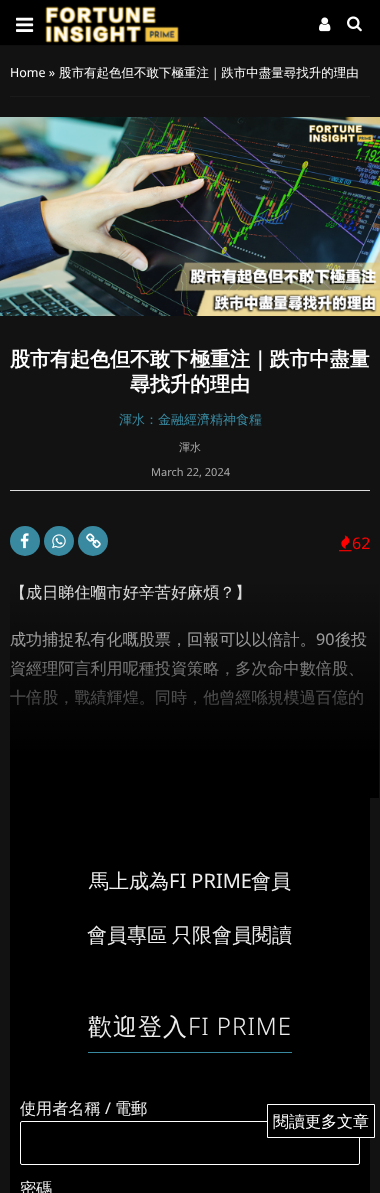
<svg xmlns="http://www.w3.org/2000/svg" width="380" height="1193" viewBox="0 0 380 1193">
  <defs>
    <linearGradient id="g1" gradientUnits="userSpaceOnUse" x1="195" y1="578" x2="195" y2="798"><stop offset="0" stop-color="#000" stop-opacity="0"/><stop offset="0.8" stop-color="#000"/><stop offset="1" stop-color="#000"/></linearGradient>
  </defs>
  <rect width="100%" height="100%" fill="#121212"/>
  <path d="M0-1V0H380V45H0V46H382V-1Z" fill="#0f0f0f"/>
  <path d="M0 0h380v45H0z" fill="#000"/>
  <image x="16" y="17" width="18" height="15" href="img/1.png"/>
  <image x="45" y="6" width="134" height="37" href="img/2.png"/>
  <image x="319" y="17" width="12" height="15" href="img/3.png"/>
  <image x="347" y="16" width="15" height="16" href="img/4.png"/>
  <path d="M10 96h360v1H10z" fill="#1a1a1a"/>
  <image x="0" y="117" width="380" height="199" href="img/5.png"/>
  <path d="M10 490h360v1H10z" fill="#ddd"/>
  <circle cx="25" cy="541" r="15" fill="#398aa1"/>
  <image x="20" y="533" width="9" height="16" href="img/6.png"/>
  <circle cx="59" cy="541" r="15" fill="#398aa1"/>
  <image x="52" y="534" width="14" height="15" href="img/7.png"/>
  <circle cx="93" cy="541" r="15" fill="#398aa1"/>
  <image x="86" y="533" width="15" height="15" href="img/8.png"/>
  <image x="339" y="535" width="13" height="17" href="img/9.png"/>
  <path d="M10 798h360v395H10z" fill="#000"/>
  <path d="M88 1052h204v1H88z" fill="#398aa1"/>
  <rect x="20.5" y="1121.5" width="339" height="43" rx="1.5" fill="none" stroke="#fff"/>
  <path d="M267.5 1104.5h107v33H267.5z" fill="#000" stroke="#fff"/>
  <text x="10" y="77" font-family="Noto Sans" font-size="12.5" fill="#fff">Home »</text>
  <text x="59" y="77" font-family="WenQuanYi Zen Hei" font-size="12.5" font-weight="500" fill="#fff">股市有起色但不敢下極重注｜跌市中盡量尋找升的理由</text>
  <g font-family="WenQuanYi Zen Hei" font-size="20" font-weight="bold" fill="#fff">
    <text x="10" y="366">股市有起色但不敢下極重注｜跌市中盡量</text>
    <text x="130" y="391">尋找升的理由</text>
  </g>
  <text x="119" y="424" font-family="WenQuanYi Zen Hei" font-size="13" font-weight="500" fill="#398aa1">渾水：金融經濟精神食糧</text>
  <text x="179" y="451" font-family="WenQuanYi Zen Hei" font-size="11" font-weight="500" fill="#ababab">渾水</text>
  <text x="151" y="476" font-family="Noto Sans" font-size="11" fill="#ababab">March 22, 2024</text>
  <text x="352" y="549" font-family="Noto Sans" font-size="16" fill="#f00">62</text>
  <g font-family="WenQuanYi Zen Hei" font-size="16.1" font-weight="500" fill="#eee">
    <text x="10" y="598">【成日睇住嗰市好辛苦好麻煩？】</text>
    <text x="10" y="645">成功捕捉私有化嘅股票，回報可以以倍計。</text>
  </g>
  <text x="316" y="645" font-family="Noto Sans" font-size="16.1" fill="#eee">90</text>
  <g font-family="WenQuanYi Zen Hei" font-size="16.1" font-weight="500" fill="#eee">
    <text x="335" y="645">後投</text>
    <text x="10" y="674">資經理阿言利用呢種投資策略，多次命中數倍股、</text>
    <text x="10" y="703">十倍股，戰績輝煌。同時，他曾經喺規模過百億的</text>
  </g>
  <path d="M10 584h369v214H10z" fill="url(#g1)"/>
  <text x="89" y="888" font-family="WenQuanYi Zen Hei" font-size="20" font-weight="500" fill="#eee">馬上成為</text>
  <text x="169" y="888" font-family="Noto Sans" font-size="20" fill="#eee">FI PRIME</text>
  <g font-family="WenQuanYi Zen Hei" font-size="20" font-weight="500" fill="#eee">
    <text x="251" y="888">會員</text>
    <text x="87" y="942" word-spacing="-1">會員專區 只限會員閱讀</text>
  </g>
  <text x="88" y="1035" font-family="WenQuanYi Zen Hei" font-size="24" font-weight="500" letter-spacing="1" fill="#eee">歡迎登入</text>
  <text x="188" y="1035" font-family="Noto Sans" font-size="24" font-weight="300" letter-spacing="1" fill="#eee">FI PRIME</text>
  <text x="20" y="1114" font-family="WenQuanYi Zen Hei" font-size="16.1" font-weight="500" fill="#eee">使用者名稱</text>
  <text x="105" y="1114" font-family="Noto Sans" font-size="16.1" fill="#eee">/</text>
  <g font-family="WenQuanYi Zen Hei" font-size="16.1" font-weight="500" fill="#eee">
    <text x="115" y="1114">電郵</text>
    <text x="20" y="1194">密碼</text>
  </g>
  <text x="273" y="1127" font-family="WenQuanYi Zen Hei" font-size="16" font-weight="500" fill="#fff">閱讀更多文章</text>
</svg>
